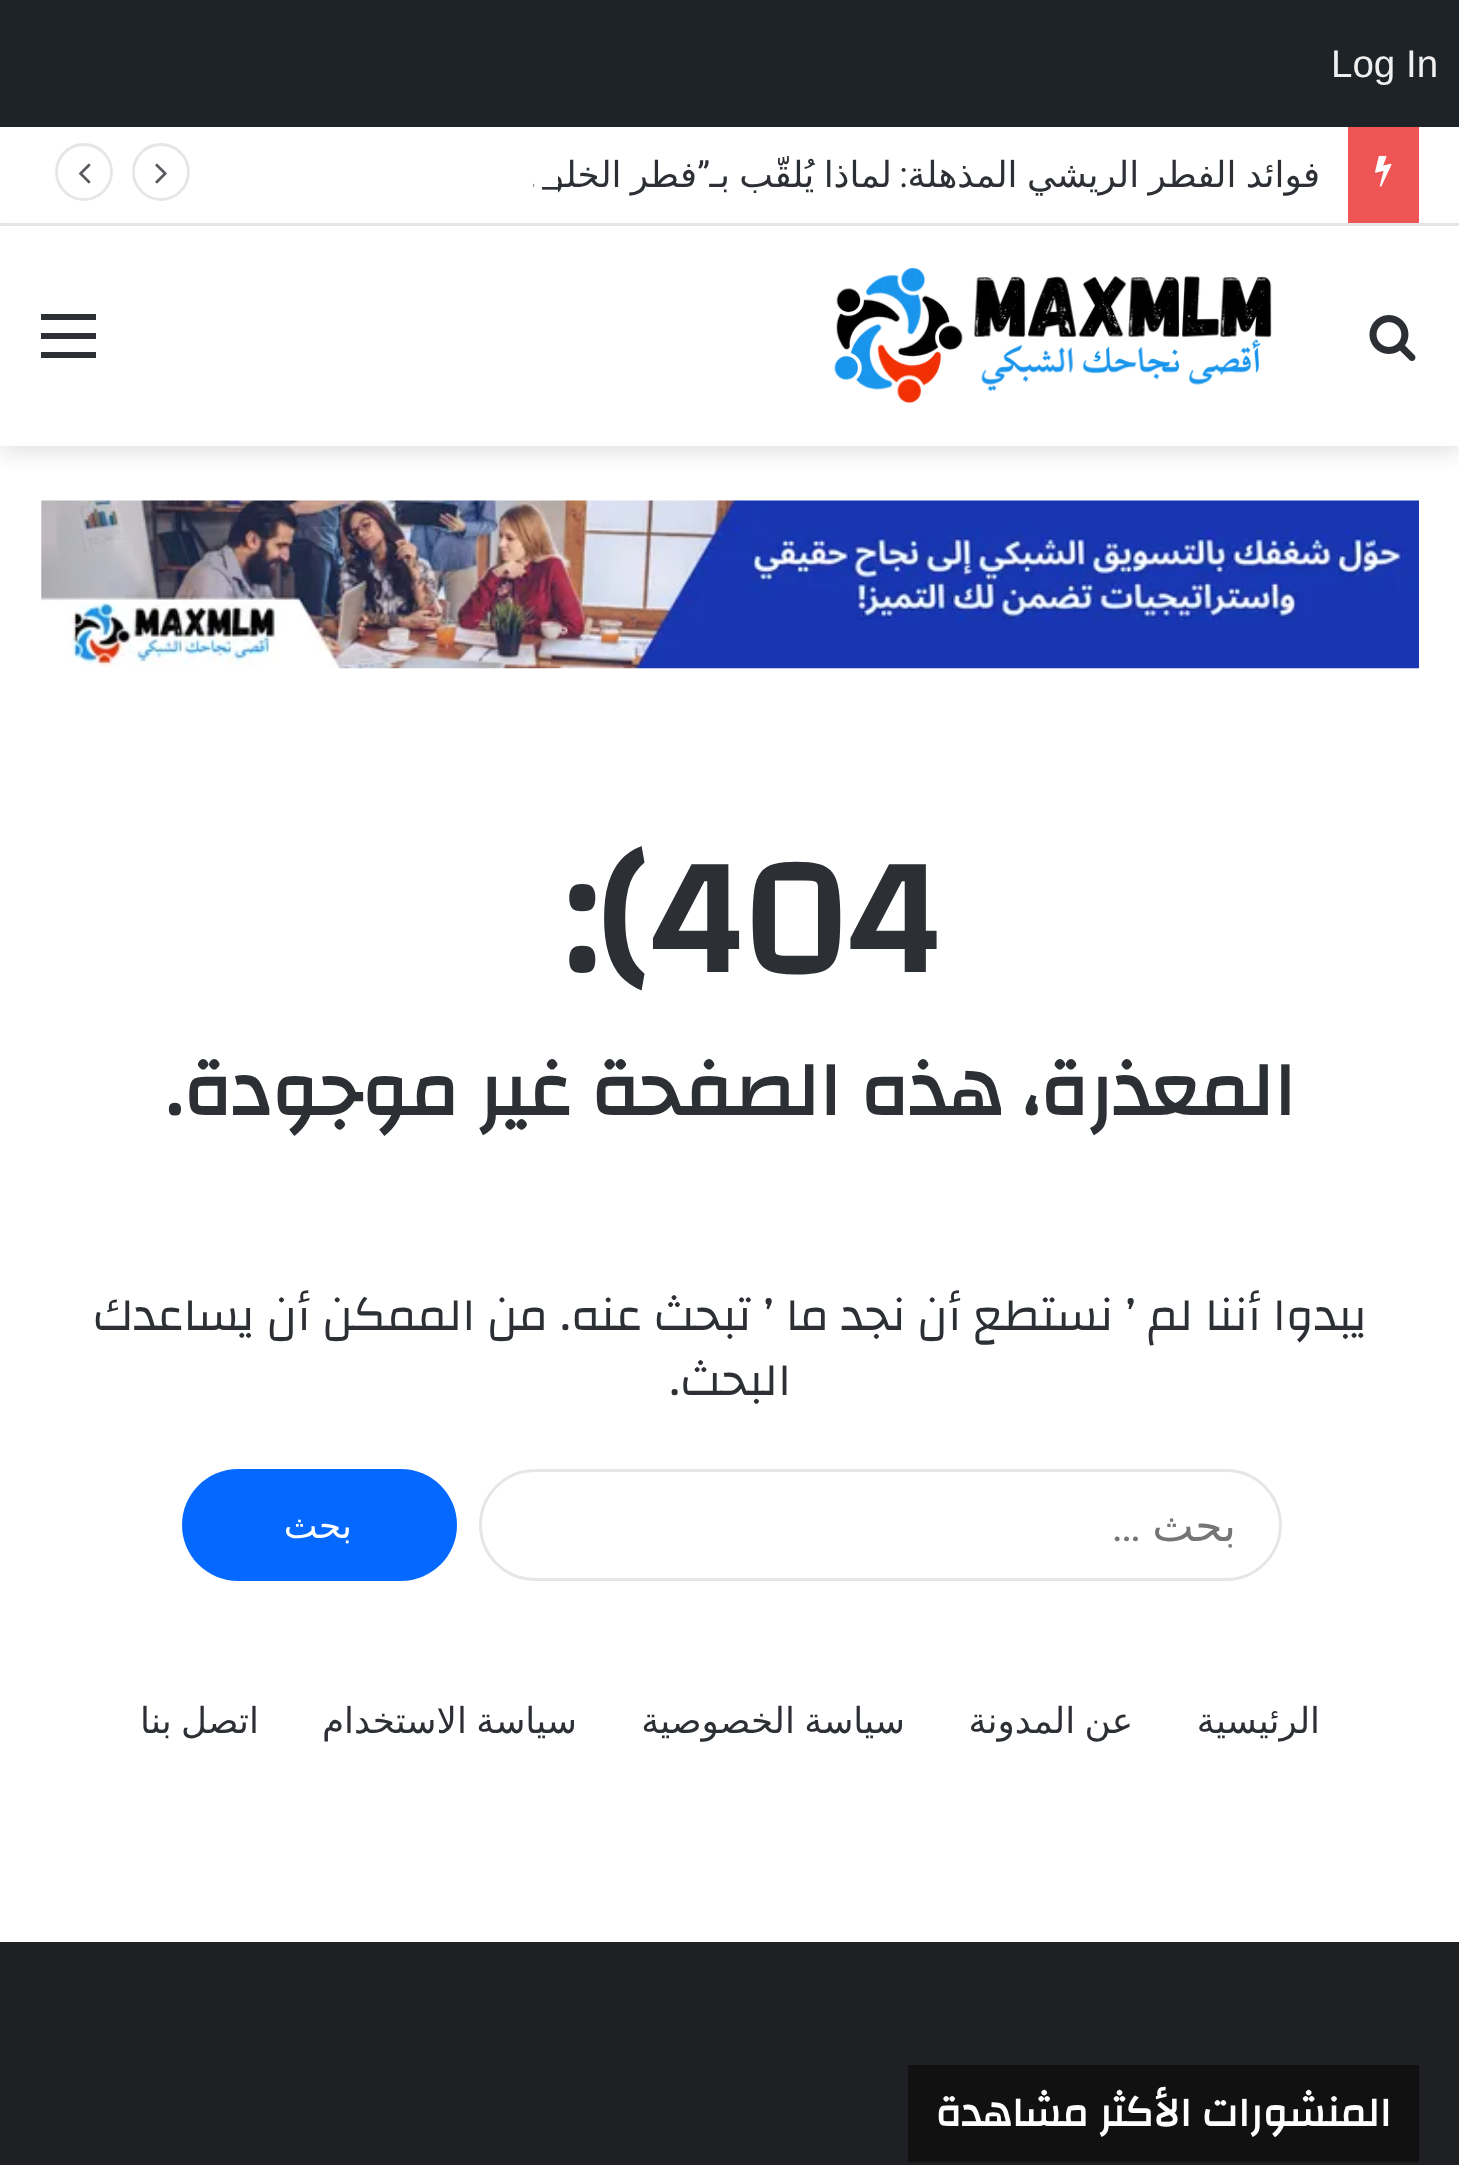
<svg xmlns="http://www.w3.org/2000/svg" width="1459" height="2165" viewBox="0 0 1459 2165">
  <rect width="100%" height="100%" fill="#fff"/>
  <path d="M0 0h1459v127H0z" fill="#1d2327"/>
  <path d="M0 234h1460v220H0z" fill="#0000001a" filter="blur(9.5px)"/>
  <path d="M12 222h1436v1H12z" fill="#fff"/>
  <path d="M0 223h1459v3H0z" fill="#e6e6e6"/>
  <path d="M1348 127h71v96H1348z" fill="#f05555"/>
  <image x="1375" y="155" width="17" height="32" href="img/1.png"/>
  <path d="M161 199.5C145.5 199.5 133.5 187 133.5 172C133.5 156.5 145.5 144.5 161 144.5C176 144.5 188.5 156.5 188.5 172C188.5 187 176 199.5 161 199.5Z" fill="none" stroke="#e6e6e6" stroke-width="2.8"/>
  <image x="155" y="163" width="12" height="21" href="img/2.png"/>
  <path d="M84 199.5C68.5 199.5 56.5 187 56.5 172C56.5 156.5 68.5 144.5 84 144.5C99 144.5 111.5 156.5 111.5 172C111.5 187 99 199.5 84 199.5Z" fill="none" stroke="#e6e6e6" stroke-width="2.8"/>
  <image x="78" y="163" width="13" height="21" href="img/3.png"/>
  <path d="M0 226h1459v220H0z" fill="#fff"/>
  <image x="1369" y="315" width="47" height="46" href="img/4.png"/>
  <image x="834" y="267" width="438" height="136" href="img/5.png"/>
  <path d="M41 333h55v6H41z" fill="#2c2f34"/>
  <path d="M41 314h55v6H41z" fill="#2c2f34"/>
  <path d="M41 352h55v6H41z" fill="#2c2f34"/>
  <image x="41" y="500" width="1378" height="169" href="img/6.png"/>
  <rect x="480.5" y="1470.5" width="800" height="109" rx="54.5" fill="none" stroke="#e6e6e6" stroke-width="3"/>
  <rect x="182" y="1469" width="275" height="112" rx="56" fill="#0669ff"/>
  <path d="M0 1942h1459v223H0z" fill="#1f2024"/>
  <path d="M908 2065h511v97H908z" fill="#111"/>
  <text x="1331" y="77" font-family="Liberation Sans" font-size="38.5" fill="#f0f0f1">Log In</text>
  <g font-family="DejaVu Sans" font-size="35.75" direction="rtl" fill="#2c2f34">
    <text x="1320" y="187" word-spacing="-2">فوائد الفطر الريشي المذهلة</text>
    <text x="892" y="187" word-spacing="-2">لماذا يُلقّب بـ</text>
  </g>
  <text x="710" y="187" font-family="Roboto" font-size="35.75" direction="rtl" fill="#2c2f34">”</text>
  <text x="697" y="187" word-spacing="-2" font-family="DejaVu Sans" font-size="35.75" direction="rtl" fill="#2c2f34">فطر الخلود</text>
  <text x="908" y="187" font-family="Roboto" font-size="35.75" direction="rtl" fill="#2c2f34">:</text>
  <path d="M534 172h24v24H534z" fill="#fff"/>
  <text x="542" y="187" font-family="Roboto" font-size="35.75" fill="#2c2f34">_</text>
  <text x="561" y="972" font-family="Changa" font-size="165" font-weight="bold" fill="#2c2f34">:(404</text>
  <text x="1295" y="1115" font-family="Changa" font-size="77" font-weight="bold" direction="rtl" fill="#2c2f34">المعذرة، هذه الصفحة غير موجودة.</text>
  <g font-family="Changa" font-size="46.75" direction="rtl" fill="#2c2f34">
    <text x="1367" y="1330">يبدوا أننا لم ’ نستطع أن نجد ما ’ تبحث عنه. من الممكن أن يساعدك</text>
    <text x="791" y="1395">البحث.</text>
  </g>
  <text x="1236" y="1541" font-family="DejaVu Sans" font-size="44" direction="rtl" fill="#757575">بحث</text>
  <text x="1141" y="1541" font-family="Roboto" font-size="44" direction="rtl" fill="#757575">…</text>
  <text x="352" y="1538" font-family="DejaVu Sans" font-size="35.75" direction="rtl" fill="#fff">بحث</text>
  <g font-family="DejaVu Sans" font-size="35.75" direction="rtl" fill="#2c2f34">
    <text x="1320" y="1733">الرئيسية</text>
    <text x="1133" y="1733" word-spacing="-2">عن المدونة</text>
    <text x="905" y="1733" word-spacing="-2">سياسة الخصوصية</text>
    <text x="577" y="1733" word-spacing="-2">سياسة الاستخدام</text>
    <text x="259" y="1733" word-spacing="-2">اتصل بنا</text>
  </g>
  <text x="1391" y="2126" font-family="Changa" font-size="41.25" font-weight="bold" direction="rtl" fill="#fff">المنشورات الأكثر مشاهدة</text>
</svg>
